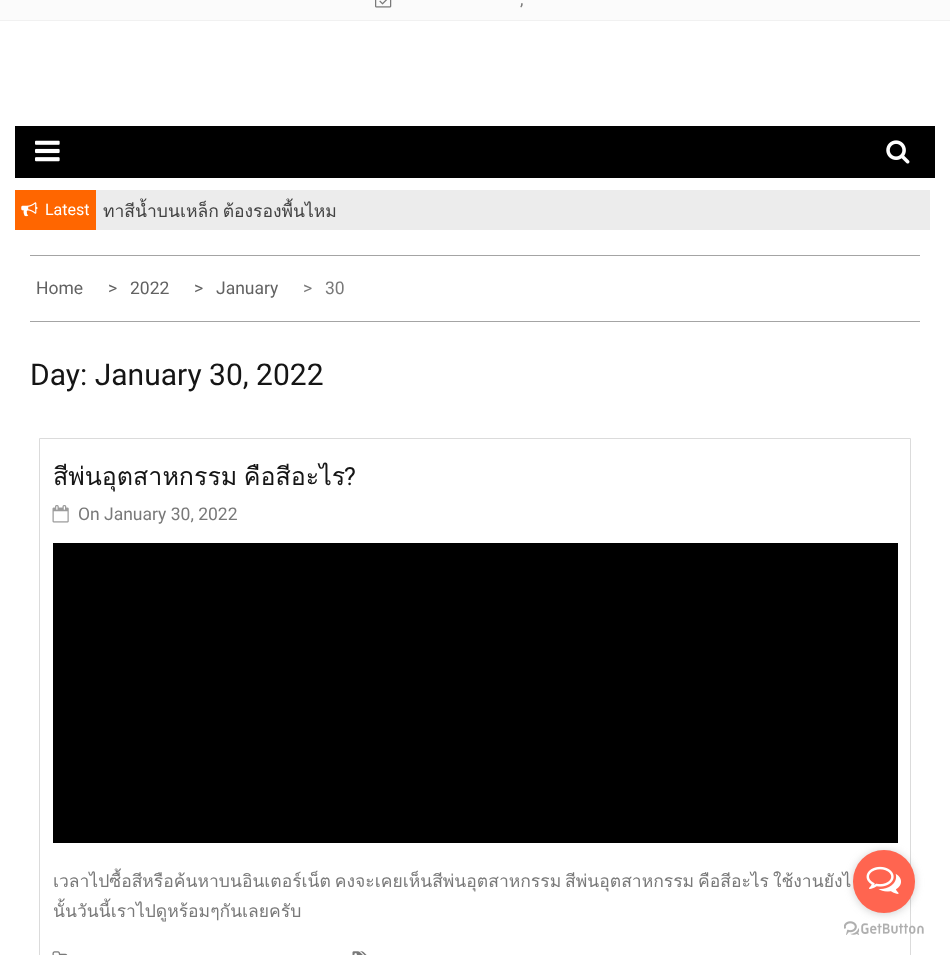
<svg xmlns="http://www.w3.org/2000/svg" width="950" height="955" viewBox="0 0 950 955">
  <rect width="100%" height="100%" fill="#fff"/>
  <path d="M0 0h950v20H0z" fill="#fbfbfb"/>
  <path d="M0 20h950v1H0z" fill="#f1f1f1"/>
  <image x="375" y="0" width="17" height="8" href="img/1.png"/>
  <path d="M15 126h920v52H15z" fill="#000"/>
  <image x="35" y="140" width="25" height="22" href="img/2.png"/>
  <image x="886" y="140" width="24" height="24" href="img/3.png"/>
  <path d="M96 190h834v40H96z" fill="#ececec"/>
  <path d="M15 190h81v40H15z" fill="#f60"/>
  <image x="21" y="202" width="17" height="15" href="img/4.png"/>
  <path d="M30 255h890v1H30z" fill="#a4a4a4"/>
  <path d="M30 321h890v1H30z" fill="#a4a4a4"/>
  <path d="M39.5 438.5h871v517H39.5z" fill="none" stroke="#dbdbdb"/>
  <image x="52" y="505" width="17" height="18" href="img/5.png"/>
  <path d="M53 543h845v300H53z" fill="#000"/>
  <image x="52" y="951" width="16" height="4" href="img/6.png"/>
  <image x="352" y="951" width="15" height="4" href="img/7.png"/>
  <image x="844" y="921" width="80" height="14" href="img/9.png"/>
  <rect x="853" y="851" width="62" height="63" rx="31" fill="#88888866" filter="blur(4.5px)"/>
  <rect x="853" y="850" width="62" height="63" rx="31" fill="#ff6550"/>
  <image x="866" y="866" width="35" height="28" href="img/8.png"/>
  <text x="520" y="5" font-family="Roboto" font-size="17.5" letter-spacing="1" fill="#797979">,</text>
  <text x="45" y="215" font-family="Roboto" font-size="16" fill="#fff">Latest</text>
  <text x="103" y="217" word-spacing="-2" font-family="Loma" font-size="17.5" fill="#424242">ทาสีน้ำบนเหล็ก ต้องรองพื้นไหม</text>
  <g font-family="Roboto" font-size="17.5" fill="#626262">
    <text x="36" y="294">Home</text>
    <text x="108" y="294">&gt;</text>
    <text x="130" y="294">2022</text>
    <text x="194" y="294">&gt;</text>
    <text x="216" y="294">January</text>
  </g>
  <g font-family="Roboto" font-size="17.5" fill="#797979">
    <text x="303" y="294">&gt;</text>
    <text x="325" y="294">30</text>
  </g>
  <text x="30" y="385" font-family="Roboto" font-size="30" fill="#151515">Day: January 30, 2022</text>
  <text x="53" y="485" word-spacing="-2" font-family="Loma" font-size="25" fill="#151515">สีพ่นอุตสาหกรรม คือสีอะไร</text>
  <text x="344" y="485" font-family="Roboto" font-size="25" fill="#151515">?</text>
  <g font-family="Roboto" font-size="17.5" fill="#797979">
    <text x="78" y="520">On</text>
    <text x="104" y="520">January 30, 2022</text>
  </g>
  <g font-family="Loma" font-size="17.5" fill="#797979">
    <text x="53" y="887" word-spacing="-2">เวลาไปซื้อสีหรือค้นหาบนอินเตอร์เน็ต คงจะเคยเห็นสีพ่นอุตสาหกรรม สีพ่นอุตสาหกรรม คือสีอะไร ใช้งานยังไ</text>
    <text x="53" y="917">นั้นวันนี้เราไปดูหร้อมๆกันเลยครับ</text>
  </g>
</svg>
